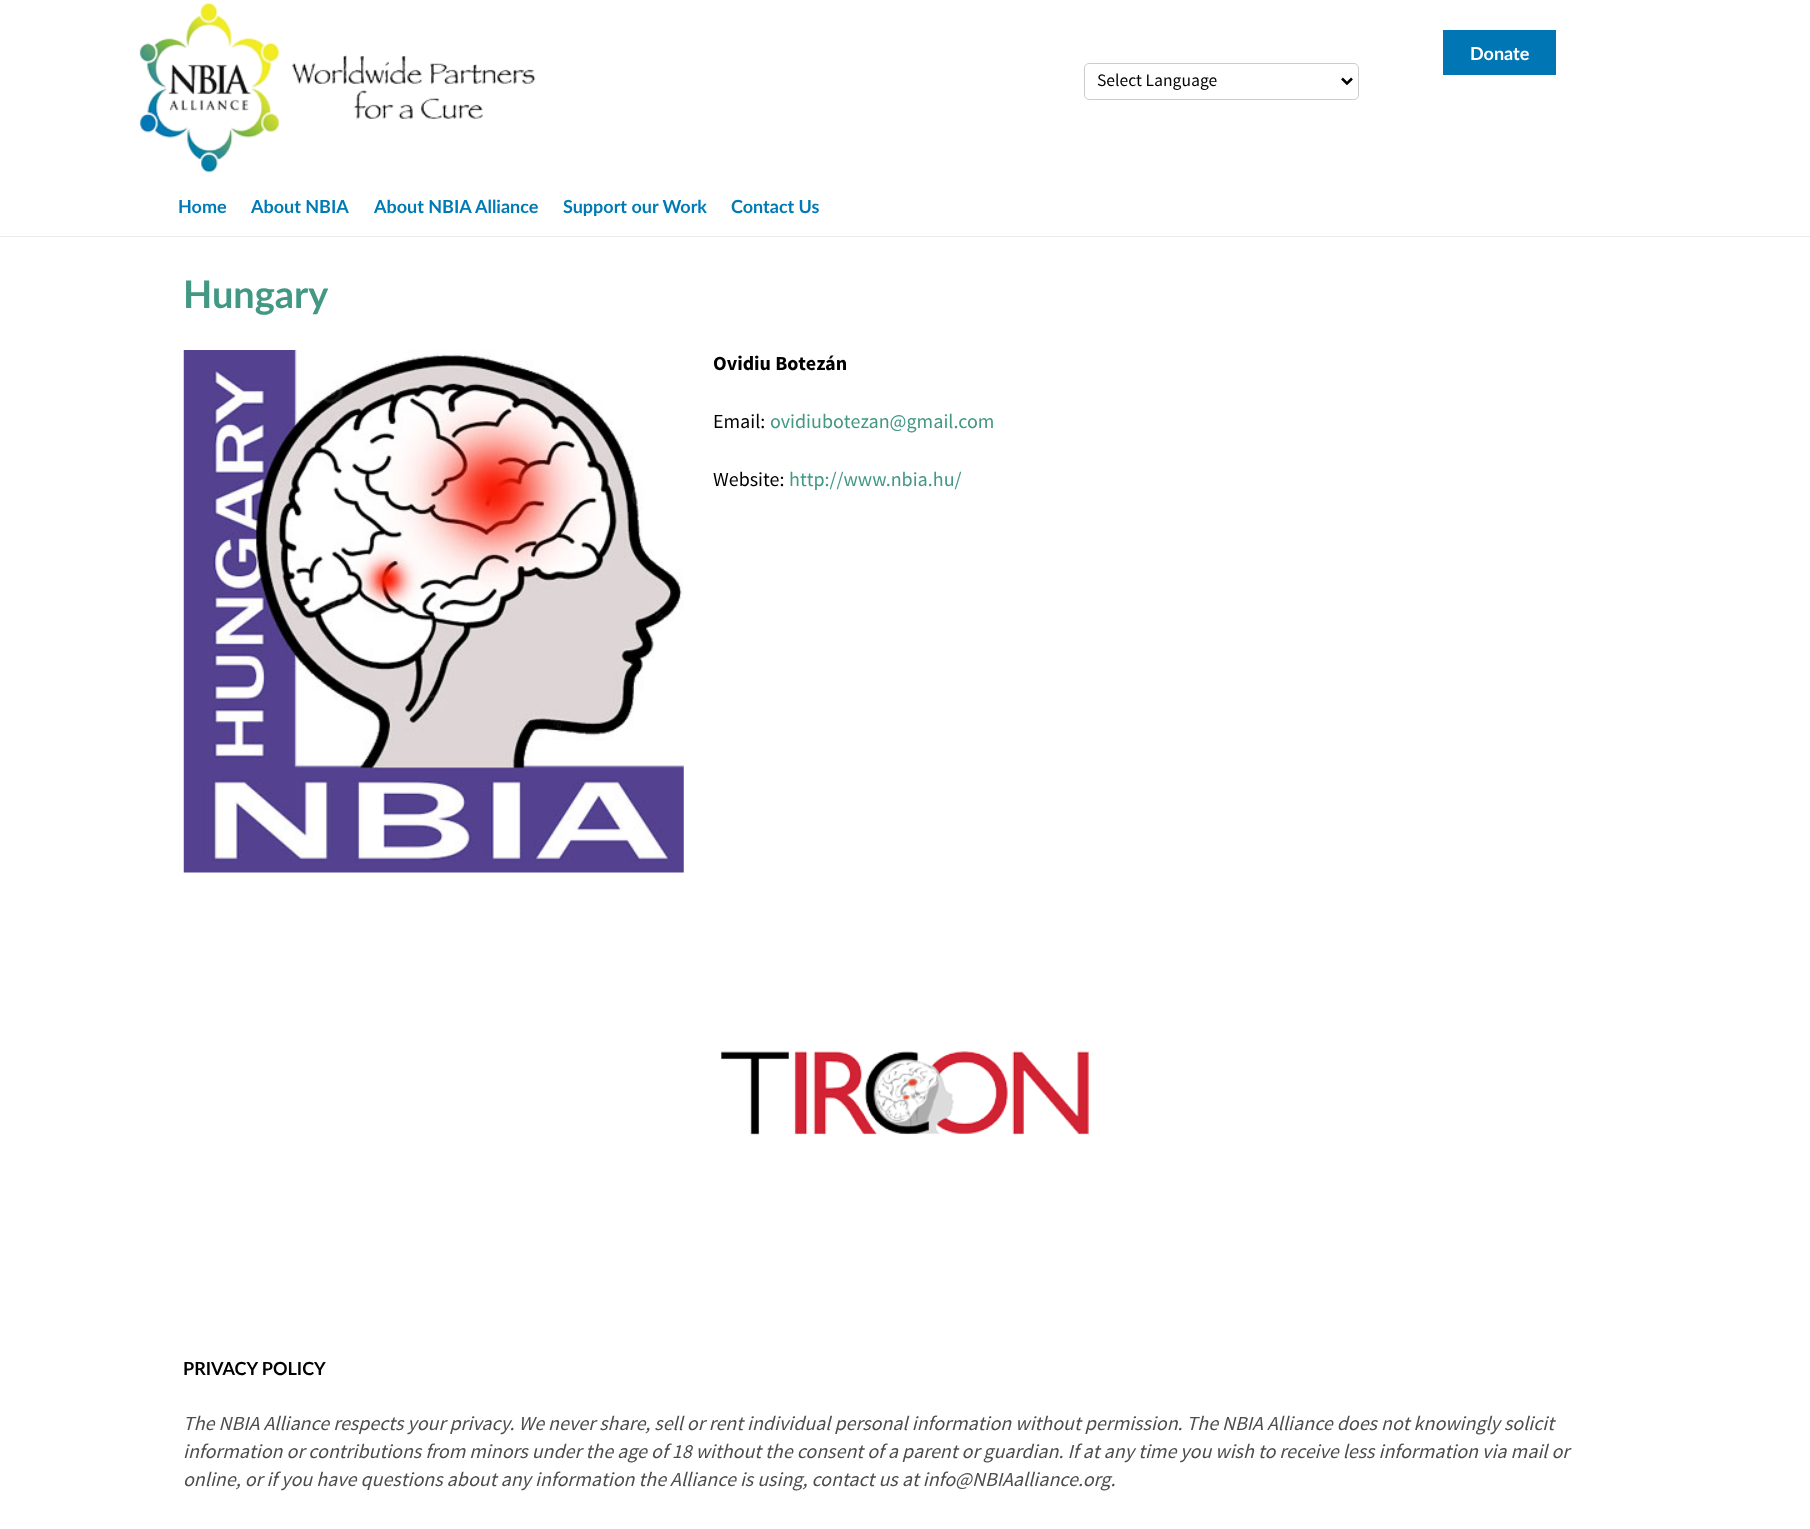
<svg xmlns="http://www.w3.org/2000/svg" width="1810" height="1529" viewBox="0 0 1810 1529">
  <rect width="100%" height="100%" fill="#fff"/>
  <image x="139" y="2" width="397" height="171" href="img/1.png"/>
  <path d="M1443 30h113v45H1443z" fill="#0076b5"/>
  <rect x="1084.5" y="63.5" width="274" height="36" rx="4.5" fill="none" stroke="#ccc"/>
  <path d="M1342 78.5L1347 83.5L1352 78.5" fill="none" stroke="#000" stroke-width="2.5"/>
  <path d="M0 236h1810v1H0z" fill="#ebebeb"/>
  <image x="183" y="350" width="501" height="523" href="img/2.png"/>
  <image x="720" y="1051" width="369" height="84" href="img/3.png"/>
  <text x="1470" y="60" font-family="Lato" font-size="18" font-weight="bold" fill="#fff">Donate</text>
  <text x="1097" y="86" font-family="Source Sans Pro" font-size="17.5" fill="#000">Select Language</text>
  <g font-family="Lato" font-size="18" font-weight="bold" fill="#007ab5">
    <text x="178" y="213">Home</text>
    <text x="251" y="213">About NBIA</text>
    <text x="374" y="213">About NBIA Alliance</text>
    <text x="563" y="213">Support our Work</text>
    <text x="731" y="213">Contact Us</text>
  </g>
  <text x="183" y="308" font-family="Lato" font-size="38" font-weight="bold" fill="#429883">Hungary</text>
  <text x="713" y="370" font-family="Source Sans Pro" font-size="20" font-weight="bold" fill="#000">Ovidiu Botezán</text>
  <text x="713" y="428" font-family="Source Sans Pro" font-size="20" fill="#000">Email:</text>
  <text x="770" y="428" font-family="Source Sans Pro" font-size="20" fill="#429883">ovidiubotezan@gmail.com</text>
  <text x="713" y="486" font-family="Source Sans Pro" font-size="20" fill="#000">Website:</text>
  <text x="789" y="486" font-family="Source Sans Pro" font-size="20" fill="#429883">http://www.nbia.hu/</text>
  <text x="183" y="1375" font-family="Lato" font-size="18" font-weight="bold" fill="#000">PRIVACY POLICY</text>
  <g font-family="Source Sans Pro" font-size="20" font-style="italic" fill="#4d4d4d">
    <text x="183" y="1430">The NBIA Alliance respects your privacy. We never share, sell or rent individual personal information without permission. The NBIA Alliance does not knowingly solicit</text>
    <text x="183" y="1458">information or contributions from minors under the age of 18 without the consent of a parent or guardian. If at any time you wish to receive less information via mail or</text>
    <text x="183" y="1486">online, or if you have questions about any information the Alliance is using, contact us at info@NBIAalliance.org.</text>
  </g>
</svg>
